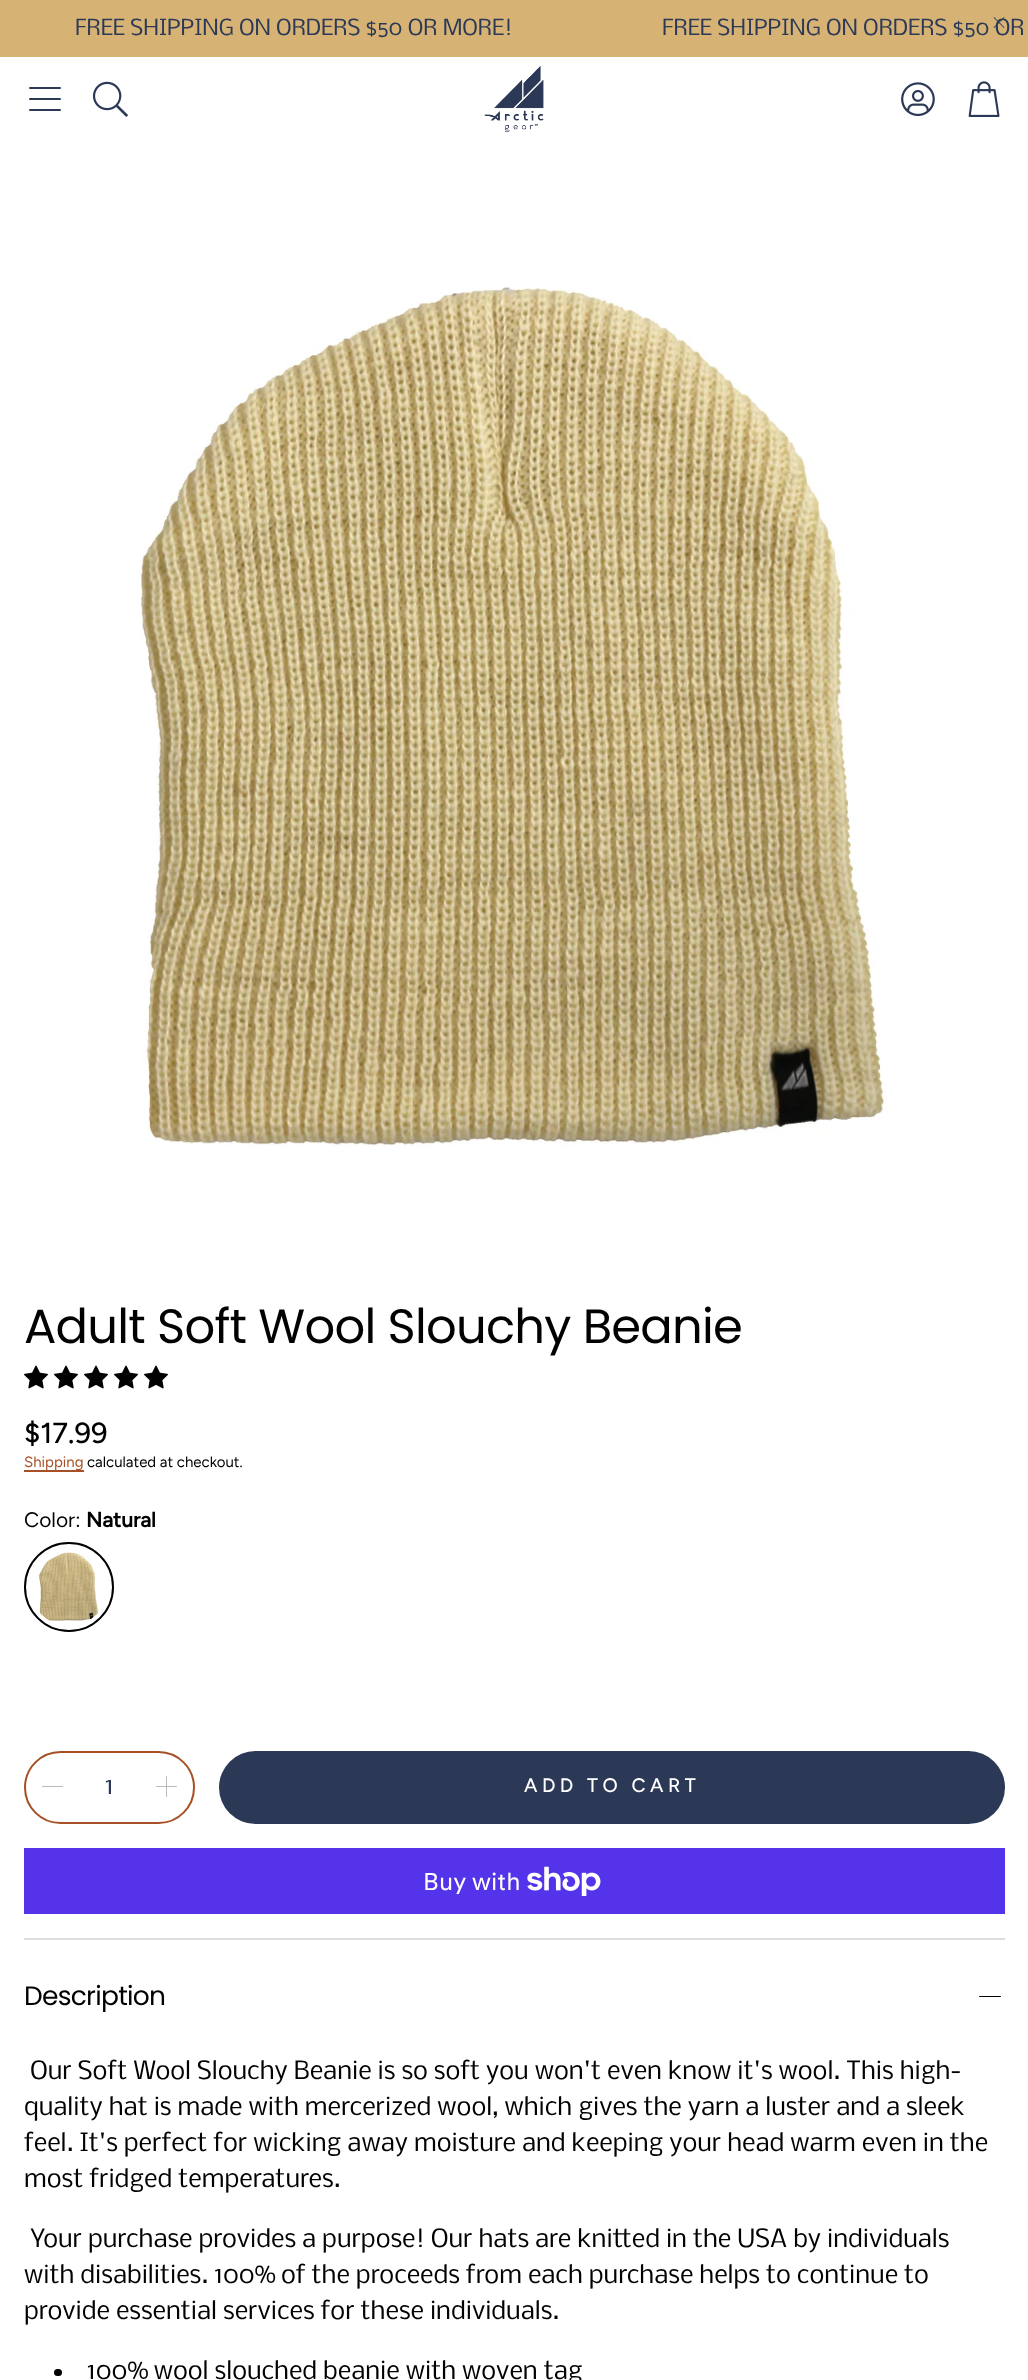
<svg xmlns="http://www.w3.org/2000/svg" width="1028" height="2380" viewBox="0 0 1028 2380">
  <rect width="100%" height="100%" fill="#fff"/>
  <path d="M0 0h1028v57H0z" fill="#d6b275"/>
  <rect x="29" y="87" width="32" height="2" rx="1" fill="#2c3956"/>
  <rect x="29" y="98" width="32" height="2" rx="1" fill="#2c3956"/>
  <rect x="29" y="109" width="32" height="2" rx="1" fill="#2c3956"/>
  <image x="92" y="81" width="36" height="36" href="img/2.png"/>
  <image x="484" y="66" width="60" height="66" href="img/3.png"/>
  <image x="901" y="82" width="34" height="34" href="img/4.png"/>
  <image x="968" y="81" width="32" height="36" href="img/5.png"/>
  <image x="139" y="287" width="748" height="860" href="img/6.png"/>
  <image x="24" y="1365" width="24" height="24" href="img/7.png"/>
  <image x="54" y="1365" width="24" height="24" href="img/7.png"/>
  <image x="84" y="1365" width="24" height="24" href="img/7.png"/>
  <image x="114" y="1365" width="24" height="24" href="img/7.png"/>
  <image x="144" y="1365" width="24" height="24" href="img/7.png"/>
  <path d="M24 1470h60v2H24z" fill="#a75025"/>
  <image x="38" y="1552" width="61" height="69" href="img/8.png"/>
  <circle cx="69" cy="1587" r="44" fill="none" stroke="#010101" stroke-width="2"/>
  <rect x="25" y="1752" width="169" height="71" rx="35.5" fill="none" stroke="#a75025" stroke-width="2"/>
  <rect x="42" y="1786" width="21" height="1" rx="0.5" fill="#bbb"/>
  <rect x="156" y="1786" width="21" height="1" rx="0.5" fill="#bbb"/>
  <rect x="166" y="1776" width="1" height="21" rx="0.5" fill="#bbb"/>
  <rect x="219" y="1751" width="786" height="73" rx="36.5" fill="#2c3956"/>
  <path d="M24 1848h981v66H24z" fill="#5433eb"/>
  <image x="527" y="1866" width="74" height="30" href="img/9.png"/>
  <path d="M24 1938h981v2H24z" fill="#dedede"/>
  <rect x="979" y="1996" width="22" height="1" rx="0.5" fill="#010101"/>
  <rect x="54" y="2369" width="8" height="7" rx="3.5" fill="#010101"/>
  <g font-family="Nobile" font-size="21" fill="#2c3956">
    <text x="75" y="35">FREE SHIPPING ON ORDERS $50 OR MORE!</text>
    <text x="662" y="35">FREE SHIPPING ON ORDERS $50 OR</text>
  </g>
  <image x="993" y="17" width="12" height="11" href="img/1.png"/>
  <text x="24" y="1343" font-family="Poppins" font-size="48" letter-spacing="-0.75" fill="#010101">Adult Soft Wool Slouchy Beanie</text>
  <text x="24" y="1443" font-family="Figtree" font-size="29" font-weight="500" fill="#010101">$17.99</text>
  <text x="24" y="1467" font-family="Figtree" font-size="15" fill="#a75025">Shipping</text>
  <text x="87" y="1467" font-family="Figtree" font-size="15" fill="#010101">calculated at checkout.</text>
  <text x="24" y="1527" font-family="Figtree" font-size="21" fill="#010101">Color:</text>
  <text x="86" y="1527" font-family="Figtree" font-size="21" font-weight="bold" fill="#010101">Natural</text>
  <text x="105" y="1794" font-family="Nobile" font-size="24" fill="#2c3956">1</text>
  <text x="524" y="1792" font-family="Figtree" font-size="19.5" font-weight="500" letter-spacing="4.5" fill="#fff">ADD TO CART</text>
  <text x="423" y="1890" font-family="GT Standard" font-size="24" fill="#fff">Buy with</text>
  <text x="24" y="2005" font-family="Poppins" font-size="26.5" letter-spacing="-0.75" fill="#010101">Description</text>
  <g font-family="Nobile" font-size="24" fill="#010101">
    <text x="30" y="2079">Our Soft Wool Slouchy Beanie is so soft you won't even know it's wool. This high-</text>
    <text x="24" y="2115">quality hat is made with mercerized wool, which gives the yarn a luster and a sleek</text>
    <text x="24" y="2151">feel. It's perfect for wicking away moisture and keeping your head warm even in the</text>
    <text x="24" y="2187">most fridged temperatures.</text>
    <text x="30" y="2247">Your purchase provides a purpose! Our hats are knitted in the USA by individuals</text>
    <text x="24" y="2283">with disabilities. 100% of the proceeds from each purchase helps to continue to</text>
    <text x="24" y="2319">provide essential services for these individuals.</text>
    <text x="87" y="2379">100% wool slouched beanie with woven tag</text>
  </g>
</svg>
